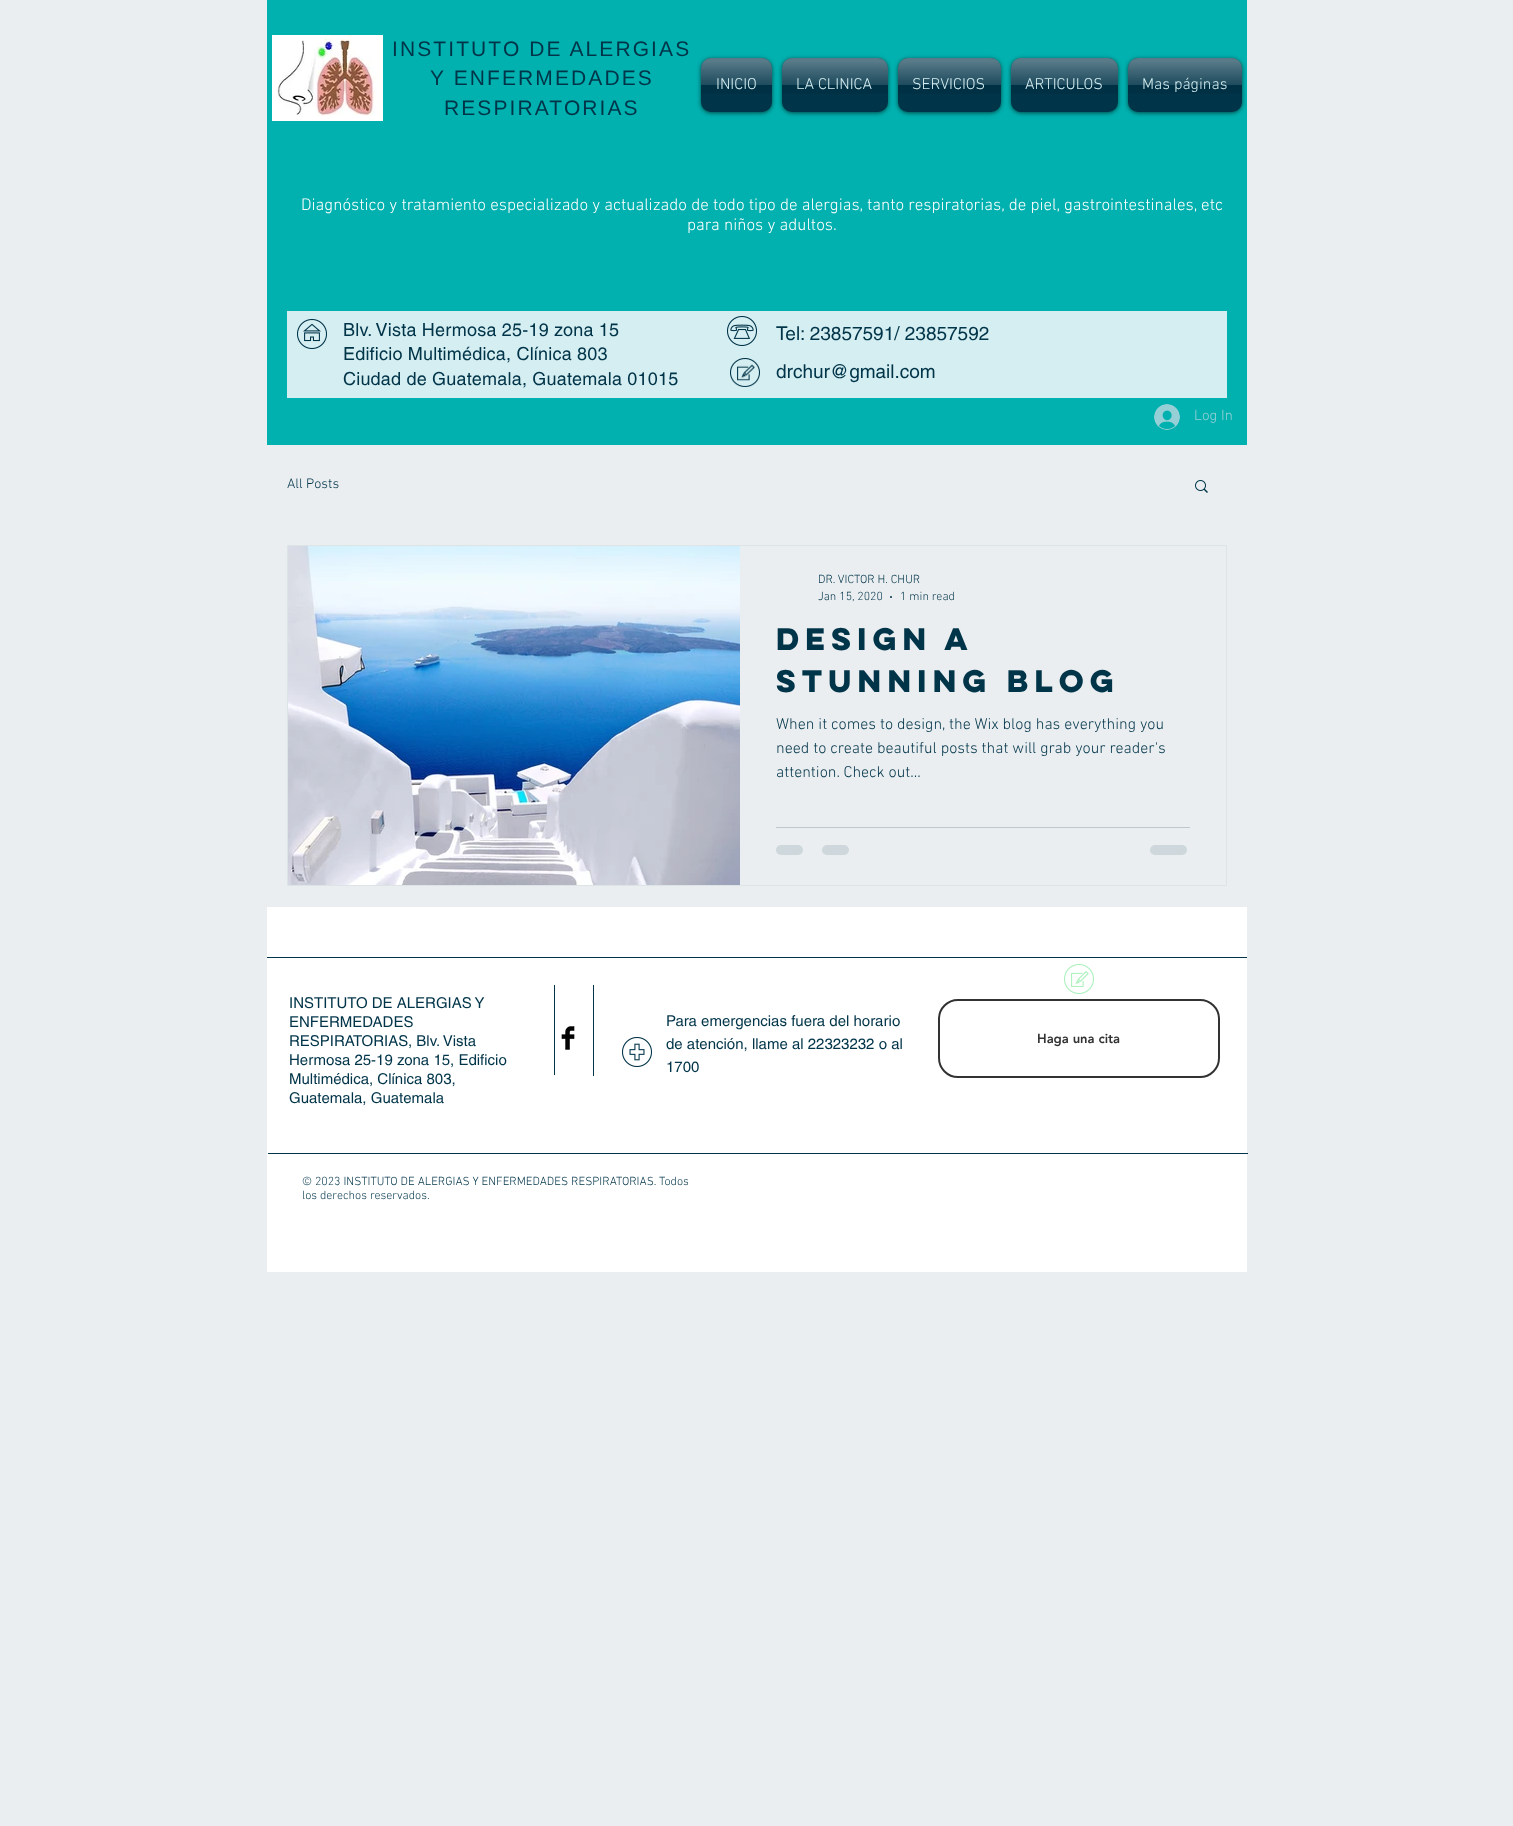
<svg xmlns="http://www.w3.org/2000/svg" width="1513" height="1826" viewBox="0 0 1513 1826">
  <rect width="100%" height="100%" fill="#eaeef0"/>
  <path d="M267 0h980v445H267z" fill="#01b1af"/>
  <image x="272" y="35" width="111" height="86" href="img/1.png"/>
  <rect x="701" y="59" width="71" height="54" rx="10" fill="#00000099" filter="blur(2px)"/>
  <rect x="701" y="58" width="71" height="54" rx="10" fill="#003449"/>
  <image x="701" y="58" width="71" height="36" href="img/2.png"/>
  <rect x="782" y="59" width="106" height="54" rx="10" fill="#00000099" filter="blur(2px)"/>
  <rect x="782" y="58" width="106" height="54" rx="10" fill="#003449"/>
  <image x="782" y="58" width="106" height="36" href="img/3.png"/>
  <rect x="898" y="59" width="103" height="54" rx="10" fill="#00000099" filter="blur(2px)"/>
  <rect x="898" y="58" width="103" height="54" rx="10" fill="#003449"/>
  <image x="898" y="58" width="103" height="36" href="img/4.png"/>
  <rect x="1011" y="59" width="107" height="54" rx="10" fill="#00000099" filter="blur(2px)"/>
  <rect x="1011" y="58" width="107" height="54" rx="10" fill="#003449"/>
  <image x="1011" y="58" width="107" height="36" href="img/5.png"/>
  <rect x="1128" y="59" width="114" height="54" rx="10" fill="#00000099" filter="blur(2px)"/>
  <rect x="1128" y="58" width="114" height="54" rx="10" fill="#003449"/>
  <image x="1128" y="58" width="114" height="36" href="img/6.png"/>
  <path d="M287 311h940v87H287z" fill="#d5eef1"/>
  <image x="297" y="319" width="30" height="30" href="img/7.png"/>
  <image x="727" y="316" width="30" height="30" href="img/8.png"/>
  <image x="730" y="358" width="30" height="29" href="img/9.png"/>
  <image x="1154" y="404" width="26" height="26" href="img/10.png"/>
  <image x="1195" y="480" width="13" height="13" href="img/11.png"/>
  <path d="M287.5 545.5h939v340H287.5z" fill="none" stroke="#dde4e6"/>
  <image x="288" y="546" width="452" height="339" href="img/12.png"/>
  <circle cx="891" cy="597" r="1" fill="#003449"/>
  <path d="M776 827h414v1H776z" fill="#bbc9cf"/>
  <rect x="776" y="845" width="27" height="10" rx="5" fill="#ced8dc"/>
  <rect x="822" y="845" width="27" height="10" rx="5" fill="#ced8dc"/>
  <rect x="1150" y="845" width="37" height="10" rx="5" fill="#ced8dc"/>
  <path d="M267 907h980v365H267z" fill="#fff"/>
  <path d="M267 957h980v1H267z" fill="#003449"/>
  <image x="1064" y="964" width="30" height="30" href="img/13.png"/>
  <path d="M554 985h1v90H554z" fill="#003449"/>
  <image x="561" y="1026" width="14" height="24" href="img/14.png"/>
  <path d="M593 985h1v91H593z" fill="#003449"/>
  <image x="622" y="1037" width="30" height="30" href="img/15.png"/>
  <rect x="939" y="1000" width="280" height="77" rx="19" fill="none" stroke="#323232" stroke-width="2"/>
  <path d="M268 1153h980v1H268z" fill="#003449"/>
  <g font-family="Liberation Sans" font-size="21" letter-spacing="2.1" fill="#003449">
    <text x="392" y="56">INSTITUTO DE ALERGIAS</text>
    <text x="430" y="85">Y ENFERMEDADES</text>
    <text x="444" y="115">RESPIRATORIAS</text>
  </g>
  <g font-family="'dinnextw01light'" font-size="16" font-weight="300" fill="#d5eef1">
    <text x="716" y="89">INICIO</text>
    <text x="796" y="89">LA CLINICA</text>
    <text x="912" y="89">SERVICIOS</text>
    <text x="1025" y="89">ARTICULOS</text>
    <text x="1142" y="89">Mas páginas</text>
  </g>
  <g font-family="'dinnextw01light'" font-size="17" font-weight="300" fill="#fff">
    <text x="301" y="210">Diagnóstico y tratamiento especializado y actualizado de todo tipo de alergias, tanto respiratorias, de piel, gastrointestinales, etc</text>
    <text x="687" y="230">para niños y adultos.</text>
  </g>
  <g font-family="helvetica" font-size="18" letter-spacing="0.2" fill="#003449">
    <text x="343" y="336">Blv. Vista Hermosa 25-19 zona 15</text>
    <text x="343" y="360">Edificio Multimédica, Clínica 803</text>
    <text x="343" y="385">Ciudad de Guatemala, Guatemala 01015</text>
  </g>
  <g font-family="helvetica" font-size="19" fill="#003449">
    <text x="776" y="340">Tel: 23857591/ 23857592</text>
    <text x="776" y="378">drchur@gmail.com</text>
  </g>
  <text x="1194" y="420" font-family="'dinnextw01light'" font-size="15" font-weight="300" fill="#96cfd5">Log In</text>
  <text x="287" y="488" font-family="'dinnextw01light'" font-size="14" font-weight="300" fill="#003449">All Posts</text>
  <g font-family="'dinnextw01light'" font-size="12" font-weight="300" fill="#003449">
    <text x="818" y="583">DR. VICTOR H. CHUR</text>
    <text x="818" y="600">Jan 15, 2020</text>
    <text x="900" y="600">1 min read</text>
  </g>
  <g font-family="'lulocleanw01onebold'" font-size="28" font-weight="bold" fill="#003449">
    <text x="776" y="650" word-spacing="-1">Design a</text>
    <text x="776" y="692">Stunning Blog</text>
  </g>
  <g font-family="'dinnextw01light'" font-size="16" font-weight="300" fill="#003449">
    <text x="776" y="729">When it comes to design, the Wix blog has everything you</text>
    <text x="776" y="753">need to create beautiful posts that will grab your reader's</text>
    <text x="776" y="777">attention. Check out...</text>
  </g>
  <g font-family="helvetica" font-size="15" fill="#003449">
    <text x="289" y="1008">INSTITUTO DE ALERGIAS Y</text>
    <text x="289" y="1027">ENFERMEDADES</text>
    <text x="289" y="1046">RESPIRATORIAS, Blv. Vista</text>
    <text x="289" y="1065">Hermosa 25-19 zona 15, Edificio</text>
    <text x="289" y="1084">Multimédica, Clínica 803,</text>
    <text x="289" y="1103">Guatemala, Guatemala</text>
    <text x="666" y="1026">Para emergencias fuera del horario</text>
    <text x="666" y="1049">de atención, llame al 22323232 o al</text>
    <text x="666" y="1072">1700</text>
  </g>
  <text x="1037" y="1043" font-family="'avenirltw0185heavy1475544'" font-size="13" font-weight="900" fill="#323232">Haga una cita</text>
  <g font-family="'dinnextw01light'" font-size="12" font-weight="300" fill="#003449">
    <text x="302" y="1185">© 2023 INSTITUTO DE ALERGIAS Y ENFERMEDADES RESPIRATORIAS. Todos</text>
    <text x="302" y="1199">los derechos reservados.</text>
  </g>
</svg>
